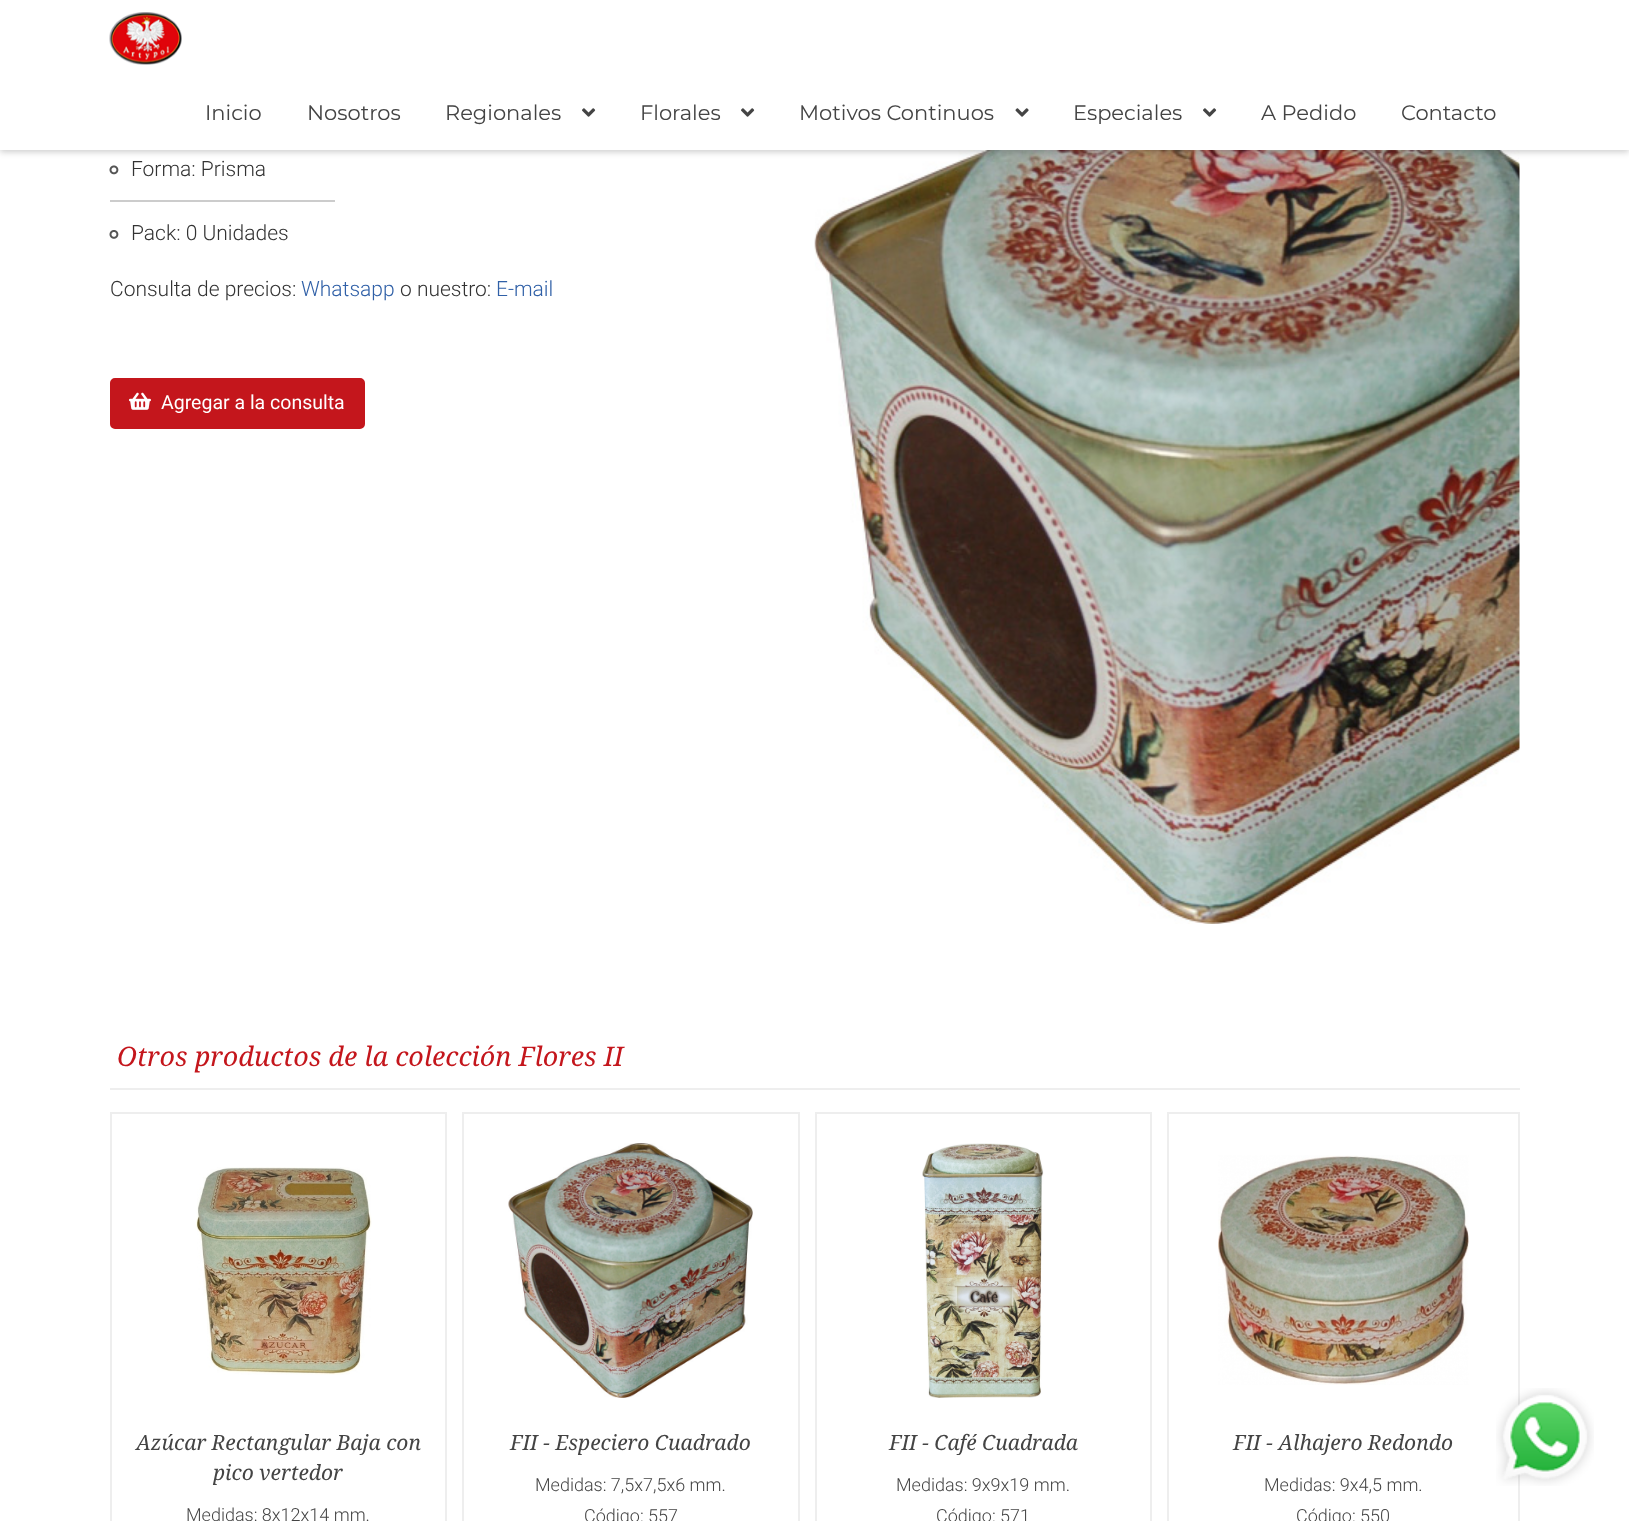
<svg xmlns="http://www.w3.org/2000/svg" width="1629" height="1521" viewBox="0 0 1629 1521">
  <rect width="100%" height="100%" fill="#fff"/>
  <image x="814" y="150" width="706" height="774" href="img/7.png"/>
  <path d="M0 2h1629v150H0z" fill="#00000033" filter="blur(3px)"/>
  <path d="M0 0h1629v150H0z" fill="#fff"/>
  <image x="109" y="12" width="73" height="53" href="img/1.png"/>
  <image x="582" y="108" width="14" height="9" href="img/2.png"/>
  <image x="741" y="108" width="14" height="9" href="img/2.png"/>
  <image x="1015" y="108" width="14" height="9" href="img/3.png"/>
  <image x="1203" y="108" width="14" height="9" href="img/2.png"/>
  <image x="109" y="165" width="10" height="10" href="img/4.png"/>
  <path d="M110 200h225v2H110z" fill="#ccc"/>
  <image x="109" y="230" width="10" height="9" href="img/5.png"/>
  <rect x="111" y="379" width="253" height="49" rx="4" fill="#c4161c" stroke="#c4161c" stroke-width="2"/>
  <image x="129" y="392" width="22" height="18" href="img/6.png"/>
  <path d="M110 1088h1410v2H110z" fill="#eee"/>
  <path d="M111 1113h335v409H111z" fill="none" stroke="#eee" stroke-width="2"/>
  <image x="196" y="1167" width="176" height="208" href="img/8.png"/>
  <path d="M463 1113h336v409H463z" fill="none" stroke="#eee" stroke-width="2"/>
  <image x="508" y="1143" width="245" height="255" href="img/9.png"/>
  <path d="M816 1113h335v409H816z" fill="none" stroke="#eee" stroke-width="2"/>
  <image x="922" y="1143" width="122" height="255" href="img/10.png"/>
  <path d="M1168 1113h351v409H1168z" fill="none" stroke="#eee" stroke-width="2"/>
  <image x="1218" y="1155" width="251" height="230" href="img/11.png"/>
  <image x="1496" y="1388" width="98" height="98" href="img/12.png"/>
  <g font-family="Montserrat" font-size="21" fill="#444">
    <text x="205" y="120">Inicio</text>
    <text x="307" y="120">Nosotros</text>
    <text x="445" y="120">Regionales</text>
    <text x="640" y="120">Florales</text>
    <text x="799" y="120">Motivos Continuos</text>
    <text x="1073" y="120">Especiales</text>
    <text x="1261" y="120">A Pedido</text>
    <text x="1401" y="120">Contacto</text>
  </g>
  <g font-family="Roboto" font-size="21" font-weight="300" fill="#333">
    <text x="131" y="176">Forma: Prisma</text>
    <text x="131" y="240">Pack: 0 Unidades</text>
    <text x="110" y="296">Consulta de precios:</text>
  </g>
  <text x="301" y="296" font-family="Roboto" font-size="21" font-weight="300" fill="#3060a7">Whatsapp</text>
  <text x="400" y="296" font-family="Roboto" font-size="21" font-weight="300" fill="#333">o nuestro:</text>
  <text x="496" y="296" font-family="Roboto" font-size="21" font-weight="300" fill="#3060a7">E-mail</text>
  <text x="161" y="409" font-family="Roboto" font-size="19.5" fill="#fff">Agregar a la consulta</text>
  <text x="117" y="1066" font-family="Droid Serif" font-size="27" font-style="italic" fill="#c4161c">Otros productos de la colección Flores II</text>
  <g font-family="Droid Serif" font-size="21" font-style="italic" fill="#444">
    <text x="136" y="1450">Azúcar Rectangular Baja con</text>
    <text x="213" y="1480">pico vertedor</text>
  </g>
  <text x="186" y="1521" font-family="Roboto" font-size="18" font-weight="300" fill="#444">Medidas: 8x12x14 mm.</text>
  <text x="510" y="1450" font-family="Droid Serif" font-size="21" font-style="italic" fill="#444">FII - Especiero Cuadrado</text>
  <g font-family="Roboto" font-size="18" font-weight="300" fill="#444">
    <text x="535" y="1491">Medidas: 7,5x7,5x6 mm.</text>
    <text x="584" y="1522">Código: 557</text>
  </g>
  <text x="889" y="1450" font-family="Droid Serif" font-size="21" font-style="italic" fill="#444">FII - Café Cuadrada</text>
  <g font-family="Roboto" font-size="18" font-weight="300" fill="#444">
    <text x="896" y="1491">Medidas: 9x9x19 mm.</text>
    <text x="936" y="1522">Código: 571</text>
  </g>
  <text x="1233" y="1450" font-family="Droid Serif" font-size="21" font-style="italic" fill="#444">FII - Alhajero Redondo</text>
  <g font-family="Roboto" font-size="18" font-weight="300" fill="#444">
    <text x="1264" y="1491">Medidas: 9x4,5 mm.</text>
    <text x="1296" y="1522">Código: 550</text>
  </g>
</svg>
